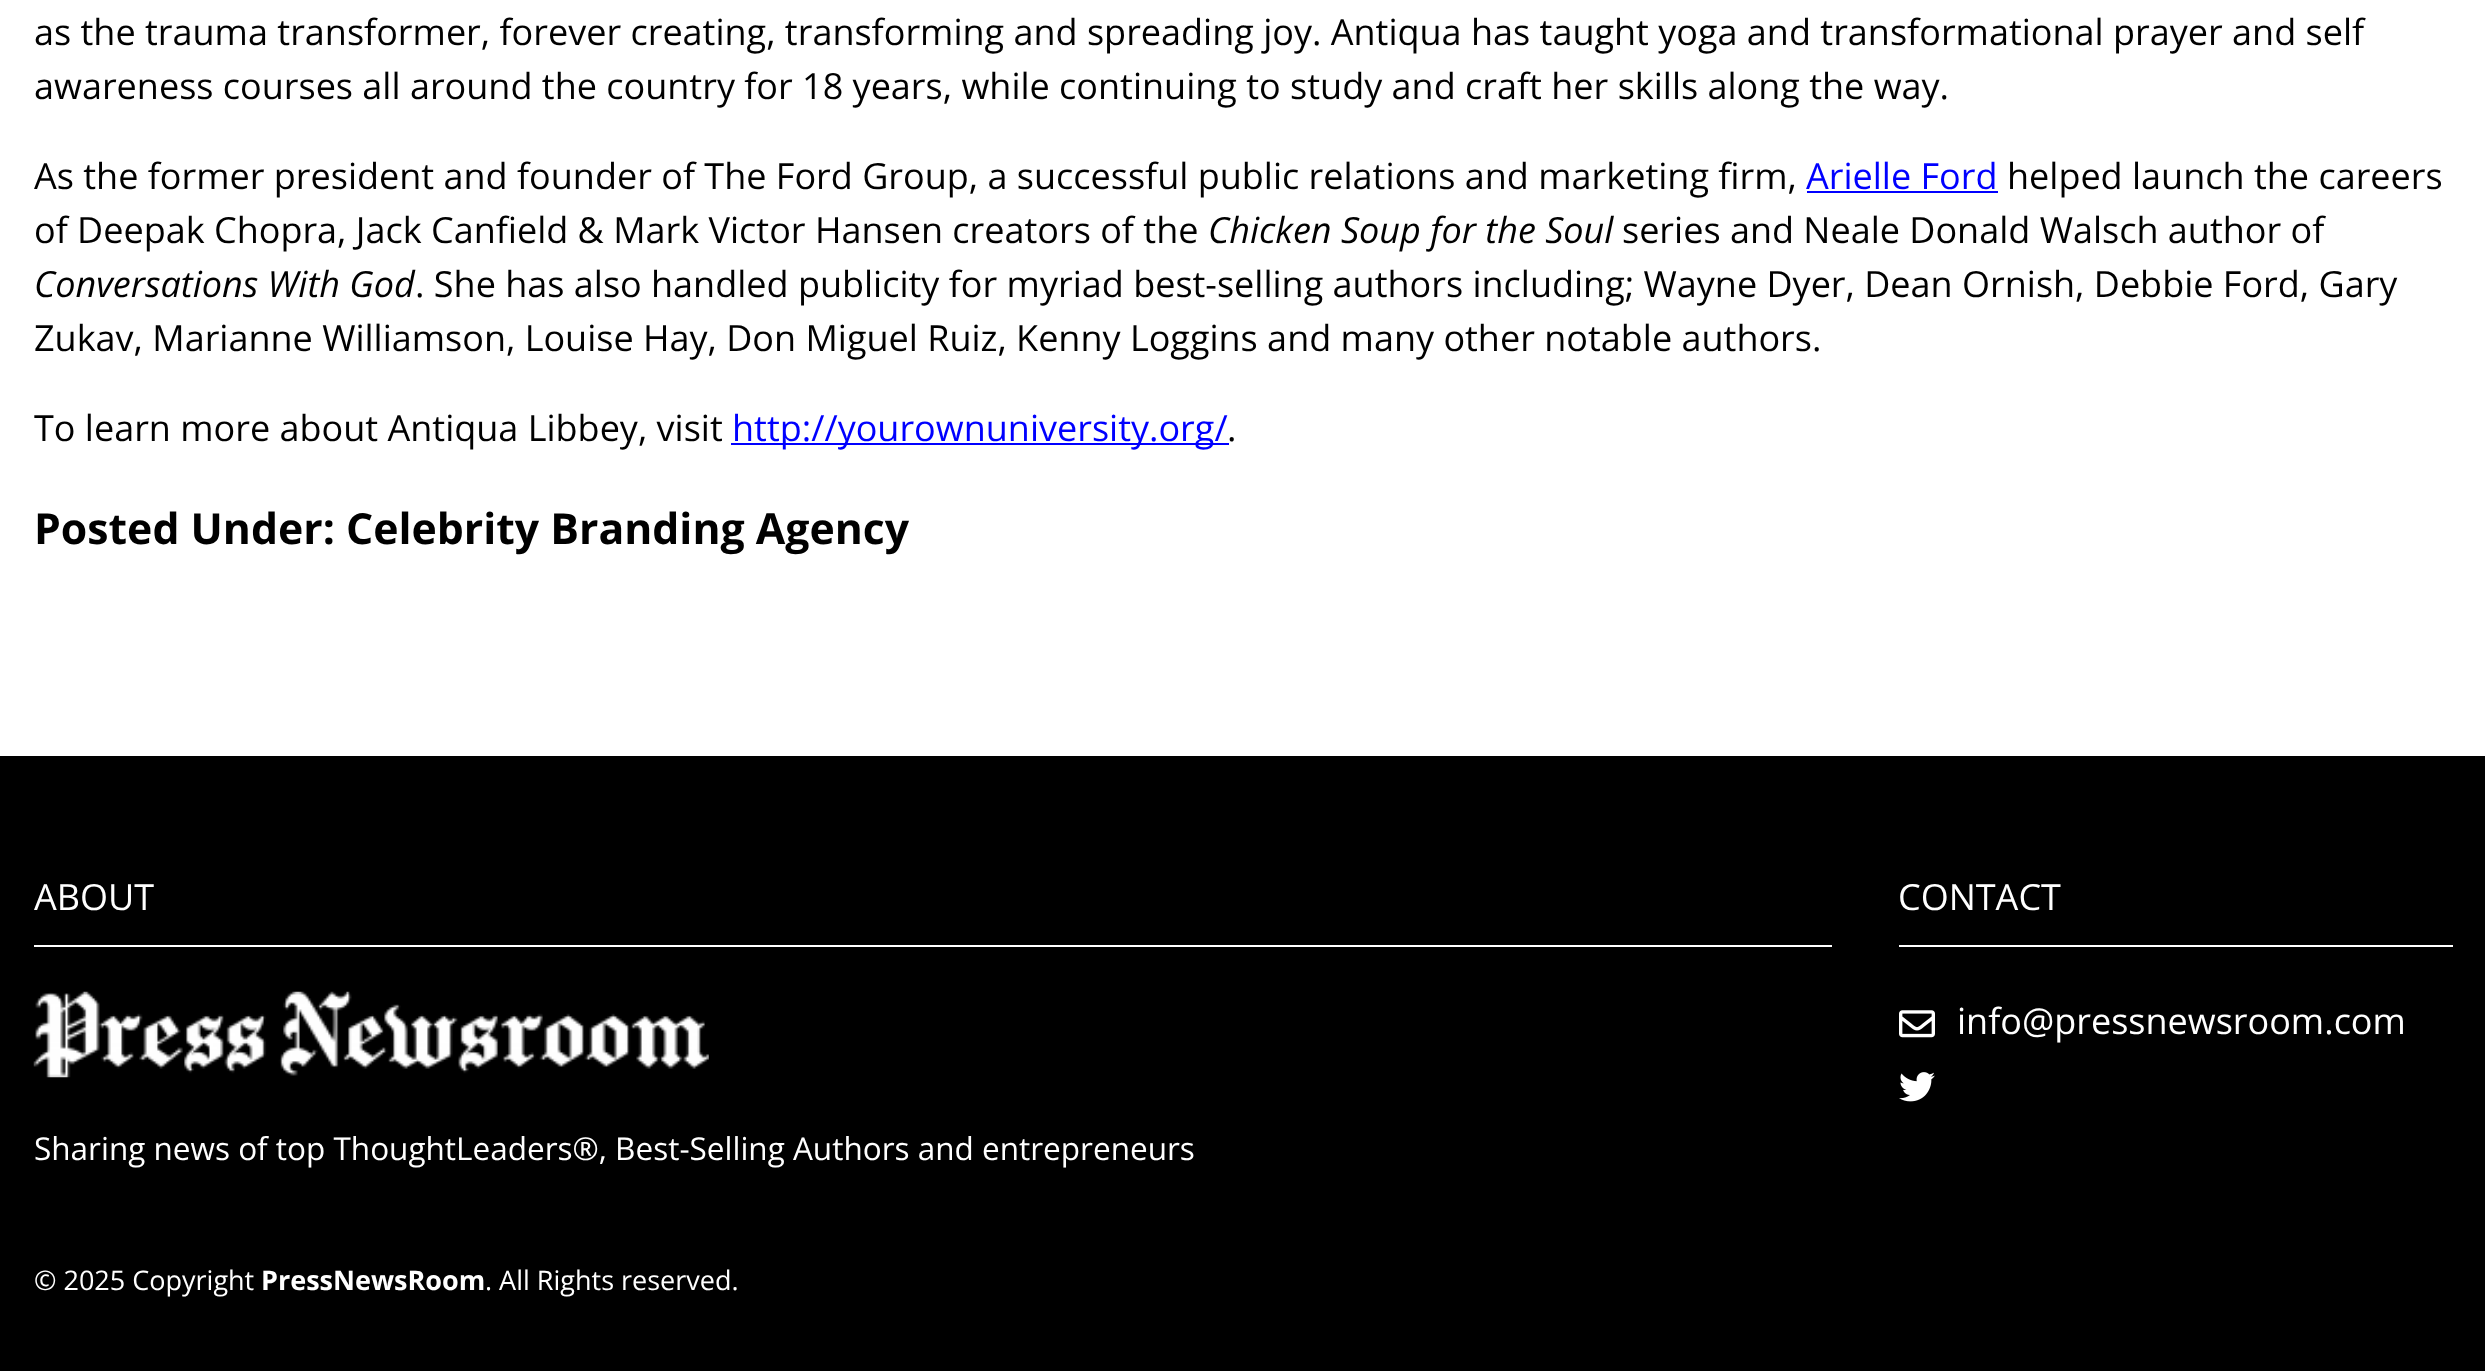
<svg xmlns="http://www.w3.org/2000/svg" width="2485" height="1371" viewBox="0 0 2485 1371">
  <rect width="100%" height="100%" fill="#fff"/>
  <path d="M1807 191h191v2H1807z" fill="#00f"/>
  <path d="M731 443h498v2H731z" fill="#00f"/>
  <path d="M0 756h2485v615H0z" fill="#000"/>
  <path d="M34 945h1798v2H34z" fill="#fff"/>
  <image x="33" y="991" width="676" height="87" href="img/1.png"/>
  <path d="M1899 945h554v2H1899z" fill="#fff"/>
  <image x="1899" y="1010" width="36" height="28" href="img/2.png"/>
  <image x="1899" y="1072" width="36" height="30" href="img/3.png"/>
  <g font-family="Open Sans" font-size="36" fill="#000">
    <text x="34" y="45">as the trauma transformer, forever creating, transforming and spreading joy. Antiqua has taught yoga and transformational prayer and self</text>
    <text x="34" y="99">awareness courses all around the country for 18 years, while continuing to study and craft her skills along the way.</text>
    <text x="34" y="189">As the former president and founder of The Ford Group, a successful public relations and marketing firm,</text>
  </g>
  <text x="1806" y="189" font-family="Open Sans" font-size="36" fill="#00f">Arielle Ford</text>
  <g font-family="Open Sans" font-size="36" fill="#000">
    <text x="2007" y="189">helped launch the careers</text>
    <text x="34" y="243">of Deepak Chopra, Jack Canfield &amp; Mark Victor Hansen creators of the</text>
  </g>
  <text x="1208" y="243" font-family="Open Sans" font-size="36" font-style="italic" fill="#000">Chicken Soup for the Soul</text>
  <text x="1622" y="243" font-family="Open Sans" font-size="36" fill="#000">series and Neale Donald Walsch author of</text>
  <text x="34" y="297" font-family="Open Sans" font-size="36" font-style="italic" fill="#000">Conversations With God</text>
  <g font-family="Open Sans" font-size="36" fill="#000">
    <text x="415" y="297">. She has also handled publicity for myriad best-selling authors including; Wayne Dyer, Dean Ornish, Debbie Ford, Gary</text>
    <text x="34" y="351">Zukav, Marianne Williamson, Louise Hay, Don Miguel Ruiz, Kenny Loggins and many other notable authors.</text>
    <text x="34" y="441">To learn more about Antiqua Libbey, visit</text>
  </g>
  <text x="732" y="441" font-family="Open Sans" font-size="36" fill="#00f">http://yourownuniversity.org/</text>
  <text x="1227" y="441" font-family="Open Sans" font-size="36" fill="#000">.</text>
  <text x="34" y="544" font-family="Open Sans" font-size="42.75" font-weight="bold" fill="#000">Posted Under: Celebrity Branding Agency</text>
  <text x="34" y="910" font-family="Open Sans" font-size="36" fill="#fff">ABOUT</text>
  <text x="34" y="1160" font-family="Open Sans" font-size="31.5" fill="#fff">Sharing news of top ThoughtLeaders®, Best-Selling Authors and entrepreneurs</text>
  <g font-family="Open Sans" font-size="36" fill="#fff">
    <text x="1898" y="910">CONTACT</text>
    <text x="1957" y="1034">info@pressnewsroom.com</text>
  </g>
  <text x="34" y="1290" font-family="Open Sans" font-size="27" fill="#fff">© 2025 Copyright</text>
  <text x="261" y="1290" font-family="Open Sans" font-size="27" font-weight="bold" fill="#fff">PressNewsRoom</text>
  <text x="485" y="1290" font-family="Open Sans" font-size="27" fill="#fff">. All Rights reserved.</text>
</svg>
